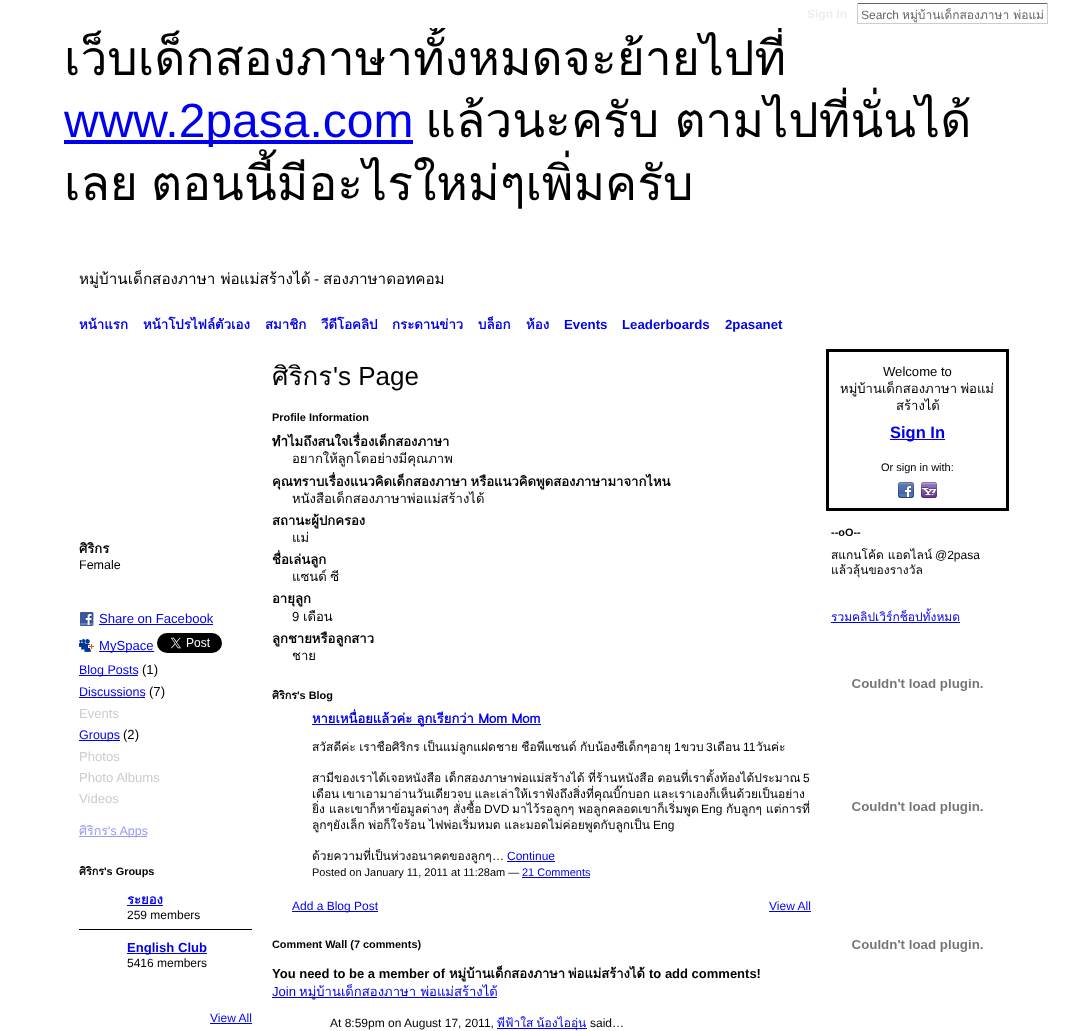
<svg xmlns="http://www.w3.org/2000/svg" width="1083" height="1031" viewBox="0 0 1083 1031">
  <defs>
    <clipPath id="clip1"><path d="M64 28h955v192H64z"/></clipPath>
    <clipPath id="clip2"><path d="M79 540h173v17H79z"/></clipPath>
    <clipPath id="clip3"><path d="M79 823h173v17H79z"/></clipPath>
    <clipPath id="clip4"><path d="M79 864h76v14H79z"/></clipPath>
    <clipPath id="clip5"><path d="M272 688h61v14H272z"/></clipPath>
    <clipPath id="clip6"><path d="M312 740h499v125H312z"/></clipPath>
    <clipPath id="clip7"><path d="M330 1016h446v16H330z"/></clipPath>
  </defs>
  <rect width="100%" height="100%" fill="#fff"/>
  <path d="M857 3h191v1H857z" fill="#666"/>
  <path d="M1047 3h1v21H1047z" fill="#ccc"/>
  <path d="M857 23h191v1H857z" fill="#ccc"/>
  <path d="M857 3h1v21H857z" fill="#ccc"/>
  <path d="M64 140h349v4H64z" fill="#00e"/>
  <image x="80" y="612" width="14" height="14" href="img/1.png"/>
  <path d="M99 624h114v1H99z" fill="#00e"/>
  <image x="79" y="639" width="15" height="13" href="img/2.png"/>
  <path d="M99 651h55v1H99z" fill="#00e"/>
  <image x="157" y="633" width="65" height="20" href="img/3.png"/>
  <path d="M79 675h59v1H79z" fill="#00e"/>
  <path d="M79 697h66v1H79z" fill="#00e"/>
  <path d="M79 740h41v1H79z" fill="#00e"/>
  <path d="M79 836h68v1H79z" fill="#9999f8"/>
  <path d="M79 929h173v1H79z" fill="#000"/>
  <path d="M127 905h36v1H127z" fill="#00e"/>
  <path d="M127 953h80v1H127z" fill="#00e"/>
  <path d="M210 1023h42v1H210z" fill="#00e"/>
  <path d="M312 724h229v1H312z" fill="#00e"/>
  <path d="M507 861h48v1H507z" fill="#00e"/>
  <path d="M522 877h68v1H522z" fill="#00e"/>
  <path d="M292 911h86v1H292z" fill="#00e"/>
  <path d="M769 911h42v1H769z" fill="#00e"/>
  <path d="M272 997h225v1H272z" fill="#00e"/>
  <path d="M497 1028h90v1H497z" fill="#00e"/>
  <path d="M827.5 350.5h180v159H827.5z" fill="none" stroke="#000" stroke-width="3"/>
  <path d="M890 439h55v1H890z" fill="#00e"/>
  <image x="898" y="482" width="16" height="16" href="img/4.png"/>
  <image x="921" y="482" width="16" height="16" href="img/5.png"/>
  <path d="M831 622h129v1H831z" fill="#00e"/>
  <image x="852" y="679" width="131" height="12" href="img/6.png"/>
  <image x="852" y="802" width="131" height="12" href="img/6.png"/>
  <image x="852" y="940" width="131" height="12" href="img/6.png"/>
  <text x="807" y="18" font-family="Liberation Sans" font-size="12" font-weight="bold" fill="#eee">Sign In</text>
  <text x="861" y="19" font-family="Liberation Sans" font-size="12" fill="#666">Search</text>
  <text x="902" y="19" font-family="Loma" font-size="12" fill="#666">หมู่บ้านเด็กสองภาษา พ่อแม่</text>
  <g clip-path="url(#clip1)">
    <text x="64" y="75" font-family="Loma" font-size="48" fill="#000">เว็บเด็กสองภาษาทั้งหมดจะย้ายไปที่</text>
  </g>
  <text x="64" y="137" font-family="Liberation Sans" font-size="48" fill="#00e">www.2pasa.com</text>
  <g font-family="Loma" font-size="48" fill="#000">
    <text x="425" y="137" word-spacing="-1">แล้วนะครับ ตามไปที่นั่นได้</text>
    <text x="64" y="200" word-spacing="-3">เลย ตอนนี้มีอะไรใหม่ๆเพิ่มครับ</text>
  </g>
  <text x="79" y="284" font-family="Loma" font-size="15.25" fill="#000">หมู่บ้านเด็กสองภาษา พ่อแม่สร้างได้</text>
  <text x="314" y="284" font-family="Liberation Sans" font-size="15.25" fill="#000">-</text>
  <text x="323" y="284" font-family="Loma" font-size="15.25" fill="#000">สองภาษาดอทคอม</text>
  <g font-family="Loma" font-size="13.25" font-weight="bold" fill="#00e">
    <text x="79" y="329">หน้าแรก</text>
    <text x="143" y="329">หน้าโปรไฟล์ตัวเอง</text>
    <text x="265" y="329">สมาชิก</text>
    <text x="321" y="329">วีดีโอคลิป</text>
    <text x="392" y="329">กระดานข่าว</text>
    <text x="478" y="329">บล็อก</text>
    <text x="526" y="329">ห้อง</text>
  </g>
  <g font-family="Liberation Sans" font-size="13.25" font-weight="bold" fill="#00e">
    <text x="564" y="329">Events</text>
    <text x="622" y="329">Leaderboards</text>
    <text x="725" y="329">2pasanet</text>
  </g>
  <g clip-path="url(#clip2)">
    <text x="79" y="553" font-family="Loma" font-size="13.1" font-weight="bold" fill="#000">ศิริกร</text>
  </g>
  <text x="79" y="569" font-family="Liberation Sans" font-size="12.5" fill="#000">Female</text>
  <g font-family="Liberation Sans" font-size="13.1" fill="#00e">
    <text x="99" y="623">Share on Facebook</text>
    <text x="99" y="650">MySpace</text>
  </g>
  <text x="79" y="674" font-family="Liberation Sans" font-size="12.5" fill="#00e">Blog Posts</text>
  <text x="142" y="674" font-family="Liberation Sans" font-size="13.1" fill="#000">(1)</text>
  <text x="79" y="696" font-family="Liberation Sans" font-size="12.5" fill="#00e">Discussions</text>
  <text x="149" y="696" font-family="Liberation Sans" font-size="13.1" fill="#000">(7)</text>
  <text x="79" y="718" font-family="Liberation Sans" font-size="13.1" fill="#ccc">Events</text>
  <text x="79" y="739" font-family="Liberation Sans" font-size="12.5" fill="#00e">Groups</text>
  <text x="123" y="739" font-family="Liberation Sans" font-size="13.1" fill="#000">(2)</text>
  <g font-family="Liberation Sans" font-size="13.1" fill="#ccc">
    <text x="79" y="761">Photos</text>
    <text x="79" y="782">Photo Albums</text>
    <text x="79" y="803">Videos</text>
  </g>
  <g clip-path="url(#clip3)">
    <text x="79" y="835" font-family="Loma" font-size="12.5" fill="#9999f8">ศิริกร</text>
  </g>
  <text x="108" y="835" font-family="Liberation Sans" font-size="12.5" fill="#9999f8">'s Apps</text>
  <g clip-path="url(#clip4)">
    <text x="79" y="875" font-family="Loma" font-size="10.9" font-weight="bold" fill="#000">ศิริกร</text>
  </g>
  <text x="104" y="875" font-family="Liberation Sans" font-size="10.9" font-weight="bold" fill="#000">'s Groups</text>
  <text x="127" y="904" font-family="Loma" font-size="13.1" font-weight="bold" fill="#00e">ระยอง</text>
  <text x="127" y="919" font-family="Liberation Sans" font-size="12" fill="#000">259 members</text>
  <text x="127" y="952" font-family="Liberation Sans" font-size="13.1" font-weight="bold" fill="#00e">English Club</text>
  <text x="127" y="967" font-family="Liberation Sans" font-size="12" fill="#000">5416 members</text>
  <text x="210" y="1022" font-family="Liberation Sans" font-size="12" fill="#00e">View All</text>
  <text x="272" y="385" font-family="Loma" font-size="26" fill="#000">ศิริกร</text>
  <text x="333" y="385" font-family="Liberation Sans" font-size="26" fill="#000">'s Page</text>
  <text x="272" y="421" font-family="Liberation Sans" font-size="10.9" font-weight="bold" fill="#000">Profile Information</text>
  <text x="272" y="446" font-family="Loma" font-size="13.1" font-weight="bold" fill="#000">ทำไมถึงสนใจเรื่องเด็กสองภาษา</text>
  <text x="292" y="463" font-family="Loma" font-size="13.1" fill="#000">อยากให้ลูกโตอย่างมีคุณภาพ</text>
  <text x="272" y="486" word-spacing="-1" font-family="Loma" font-size="13.1" font-weight="bold" fill="#000">คุณทราบเรื่องแนวคิดเด็กสองภาษา หรือแนวคิดพูดสองภาษามาจากไหน</text>
  <text x="292" y="503" font-family="Loma" font-size="13.1" fill="#000">หนังสือเด็กสองภาษาพ่อแม่สร้างได้</text>
  <text x="272" y="525" font-family="Loma" font-size="13.1" font-weight="bold" fill="#000">สถานะผู้ปกครอง</text>
  <text x="292" y="542" font-family="Loma" font-size="13.1" fill="#000">แม่</text>
  <text x="272" y="564" font-family="Loma" font-size="13.1" font-weight="bold" fill="#000">ชื่อเล่นลูก</text>
  <text x="292" y="581" word-spacing="-1" font-family="Loma" font-size="13.1" fill="#000">แซนด์ ซี</text>
  <text x="272" y="603" font-family="Loma" font-size="13.1" font-weight="bold" fill="#000">อายุลูก</text>
  <text x="292" y="621" font-family="Liberation Sans" font-size="13.1" fill="#000">9</text>
  <text x="303" y="621" font-family="Loma" font-size="13.1" fill="#000">เดือน</text>
  <text x="272" y="643" font-family="Loma" font-size="13.1" font-weight="bold" fill="#000">ลูกชายหรือลูกสาว</text>
  <text x="292" y="660" font-family="Loma" font-size="13.1" fill="#000">ชาย</text>
  <g clip-path="url(#clip5)">
    <text x="272" y="699" font-family="Loma" font-size="10.9" font-weight="bold" fill="#000">ศิริกร</text>
  </g>
  <text x="297" y="699" font-family="Liberation Sans" font-size="10.9" font-weight="bold" fill="#000">'s Blog</text>
  <text x="312" y="723" font-family="Loma" font-size="13" font-weight="bold" fill="#00e">หายเหนื่อยแล้วค่ะ ลูกเรียกว่า Mom Mom</text>
  <g clip-path="url(#clip6)">
    <text x="312" y="751" word-spacing="-0.5" font-family="Loma" font-size="12" fill="#000">สวัสดีค่ะ เราชื่อศิริกร เป็นแม่ลูกแฝดชาย ชื่อพี่แซนด์ กับน้องซีเด็กๆอายุ</text>
  </g>
  <text x="674" y="751" font-family="Liberation Sans" font-size="12" fill="#000">1</text>
  <text x="681" y="751" font-family="Loma" font-size="12" fill="#000">ขวบ</text>
  <text x="706" y="751" font-family="Liberation Sans" font-size="12" fill="#000">3</text>
  <text x="713" y="751" font-family="Loma" font-size="12" fill="#000">เดือน</text>
  <text x="743" y="751" font-family="Liberation Sans" font-size="12" fill="#000">11</text>
  <g font-family="Loma" font-size="12" fill="#000">
    <text x="756" y="751">วันค่ะ</text>
    <text x="312" y="782" word-spacing="-0.5">สามีของเราได้เจอหนังสือ เด็กสองภาษาพ่อแม่สร้างได้ ที่ร้านหนังสือ ตอนที่เราตั้งท้องได้ประมาณ</text>
  </g>
  <text x="803" y="782" font-family="Liberation Sans" font-size="12" fill="#000">5</text>
  <g clip-path="url(#clip6)">
    <g font-family="Loma" font-size="12" fill="#000">
      <text x="312" y="798" word-spacing="-1">เดือน เขาเอามาอ่านวันเดียวจบ และเล่าให้เราฟังถึงสิ่งที่คุณบิ๊กบอก และเราเองก็เห็นด้วยเป็นอย่าง</text>
      <text x="312" y="813">ยิ่ง และเขาก็หาข้อมูลต่างๆ สั่งซื้อ</text>
    </g>
  </g>
  <text x="484" y="813" font-family="Liberation Sans" font-size="12" fill="#000">DVD</text>
  <text x="512" y="813" font-family="Loma" font-size="12" fill="#000">มาไว้รอลูกๆ พอลูกคลอดเขาก็เริ่มพูด</text>
  <text x="701" y="813" font-family="Liberation Sans" font-size="12" fill="#000">Eng</text>
  <text x="726" y="813" font-family="Loma" font-size="12" fill="#000">กับลูกๆ แต่การที่</text>
  <g clip-path="url(#clip6)">
    <text x="312" y="829" word-spacing="-0.5" font-family="Loma" font-size="12" fill="#000">ลูกๆยังเล็ก พ่อก็ใจร้อน ไฟพ่อเริ่มหมด และมอดไม่ค่อยพูดกับลูกเป็น</text>
  </g>
  <text x="653" y="829" font-family="Liberation Sans" font-size="12" fill="#000">Eng</text>
  <g clip-path="url(#clip6)">
    <text x="312" y="860" font-family="Loma" font-size="12" fill="#000">ด้วยความที่เป็นห่วงอนาคตของลูกๆ</text>
  </g>
  <text x="492" y="860" font-family="Liberation Sans" font-size="12" fill="#000">…</text>
  <text x="507" y="860" font-family="Liberation Sans" font-size="12" fill="#00e">Continue</text>
  <text x="312" y="876" font-family="Liberation Sans" font-size="11" fill="#000">Posted on January 11, 2011 at 11:28am —</text>
  <text x="522" y="876" font-family="Liberation Sans" font-size="11" fill="#00e">21 Comments</text>
  <g font-family="Liberation Sans" font-size="12" fill="#00e">
    <text x="292" y="910">Add a Blog Post</text>
    <text x="769" y="910">View All</text>
  </g>
  <text x="272" y="948" font-family="Liberation Sans" font-size="10.9" font-weight="bold" fill="#000">Comment Wall (7 comments)</text>
  <text x="272" y="978" font-family="Liberation Sans" font-size="13" font-weight="bold" fill="#000">You need to be a member of</text>
  <g font-family="Loma" font-size="13" font-weight="bold" fill="#000">
    <text x="449" y="978">หมู่บ้านเด็กสองภาษา</text>
    <text x="568" y="978">พ่อแม่สร้างได้</text>
  </g>
  <text x="649" y="978" font-family="Liberation Sans" font-size="13" font-weight="bold" fill="#000">to add comments!</text>
  <text x="272" y="996" font-family="Liberation Sans" font-size="13.1" fill="#00e">Join</text>
  <text x="299" y="996" font-family="Loma" font-size="13.1" fill="#00e">หมู่บ้านเด็กสองภาษา พ่อแม่สร้างได้</text>
  <text x="330" y="1027" font-family="Liberation Sans" font-size="12" fill="#000">At 8:59pm on August 17, 2011,</text>
  <g clip-path="url(#clip7)">
    <text x="497" y="1027" word-spacing="-1" font-family="Loma" font-size="12" fill="#00e">พี่ฟ้าใส น้องไออุ่น</text>
  </g>
  <text x="590" y="1027" font-family="Liberation Sans" font-size="12" fill="#000">said…</text>
  <text x="883" y="376" font-family="Liberation Sans" font-size="13.1" fill="#000">Welcome to</text>
  <g font-family="Loma" font-size="13.1" fill="#000">
    <text x="840" y="393" word-spacing="-1">หมู่บ้านเด็กสองภาษา พ่อแม่</text>
    <text x="896" y="410">สร้างได้</text>
  </g>
  <text x="890" y="438" font-family="Liberation Sans" font-size="16.5" font-weight="bold" fill="#00e">Sign In</text>
  <text x="881" y="471" font-family="Liberation Sans" font-size="11" fill="#000">Or sign in with:</text>
  <text x="831" y="536" font-family="Liberation Sans" font-size="10.9" font-weight="bold" fill="#000">--oO--</text>
  <text x="831" y="559" font-family="Loma" font-size="12" fill="#000">สแกนโค้ด แอดไลน์</text>
  <text x="935" y="559" font-family="Liberation Sans" font-size="12" fill="#000">@2pasa</text>
  <text x="831" y="574" font-family="Loma" font-size="12" fill="#000">แล้วลุ้นของรางวัล</text>
  <text x="831" y="621" font-family="Loma" font-size="12" fill="#00e">รวมคลิปเวิร์กช็อปทั้งหมด</text>
</svg>
